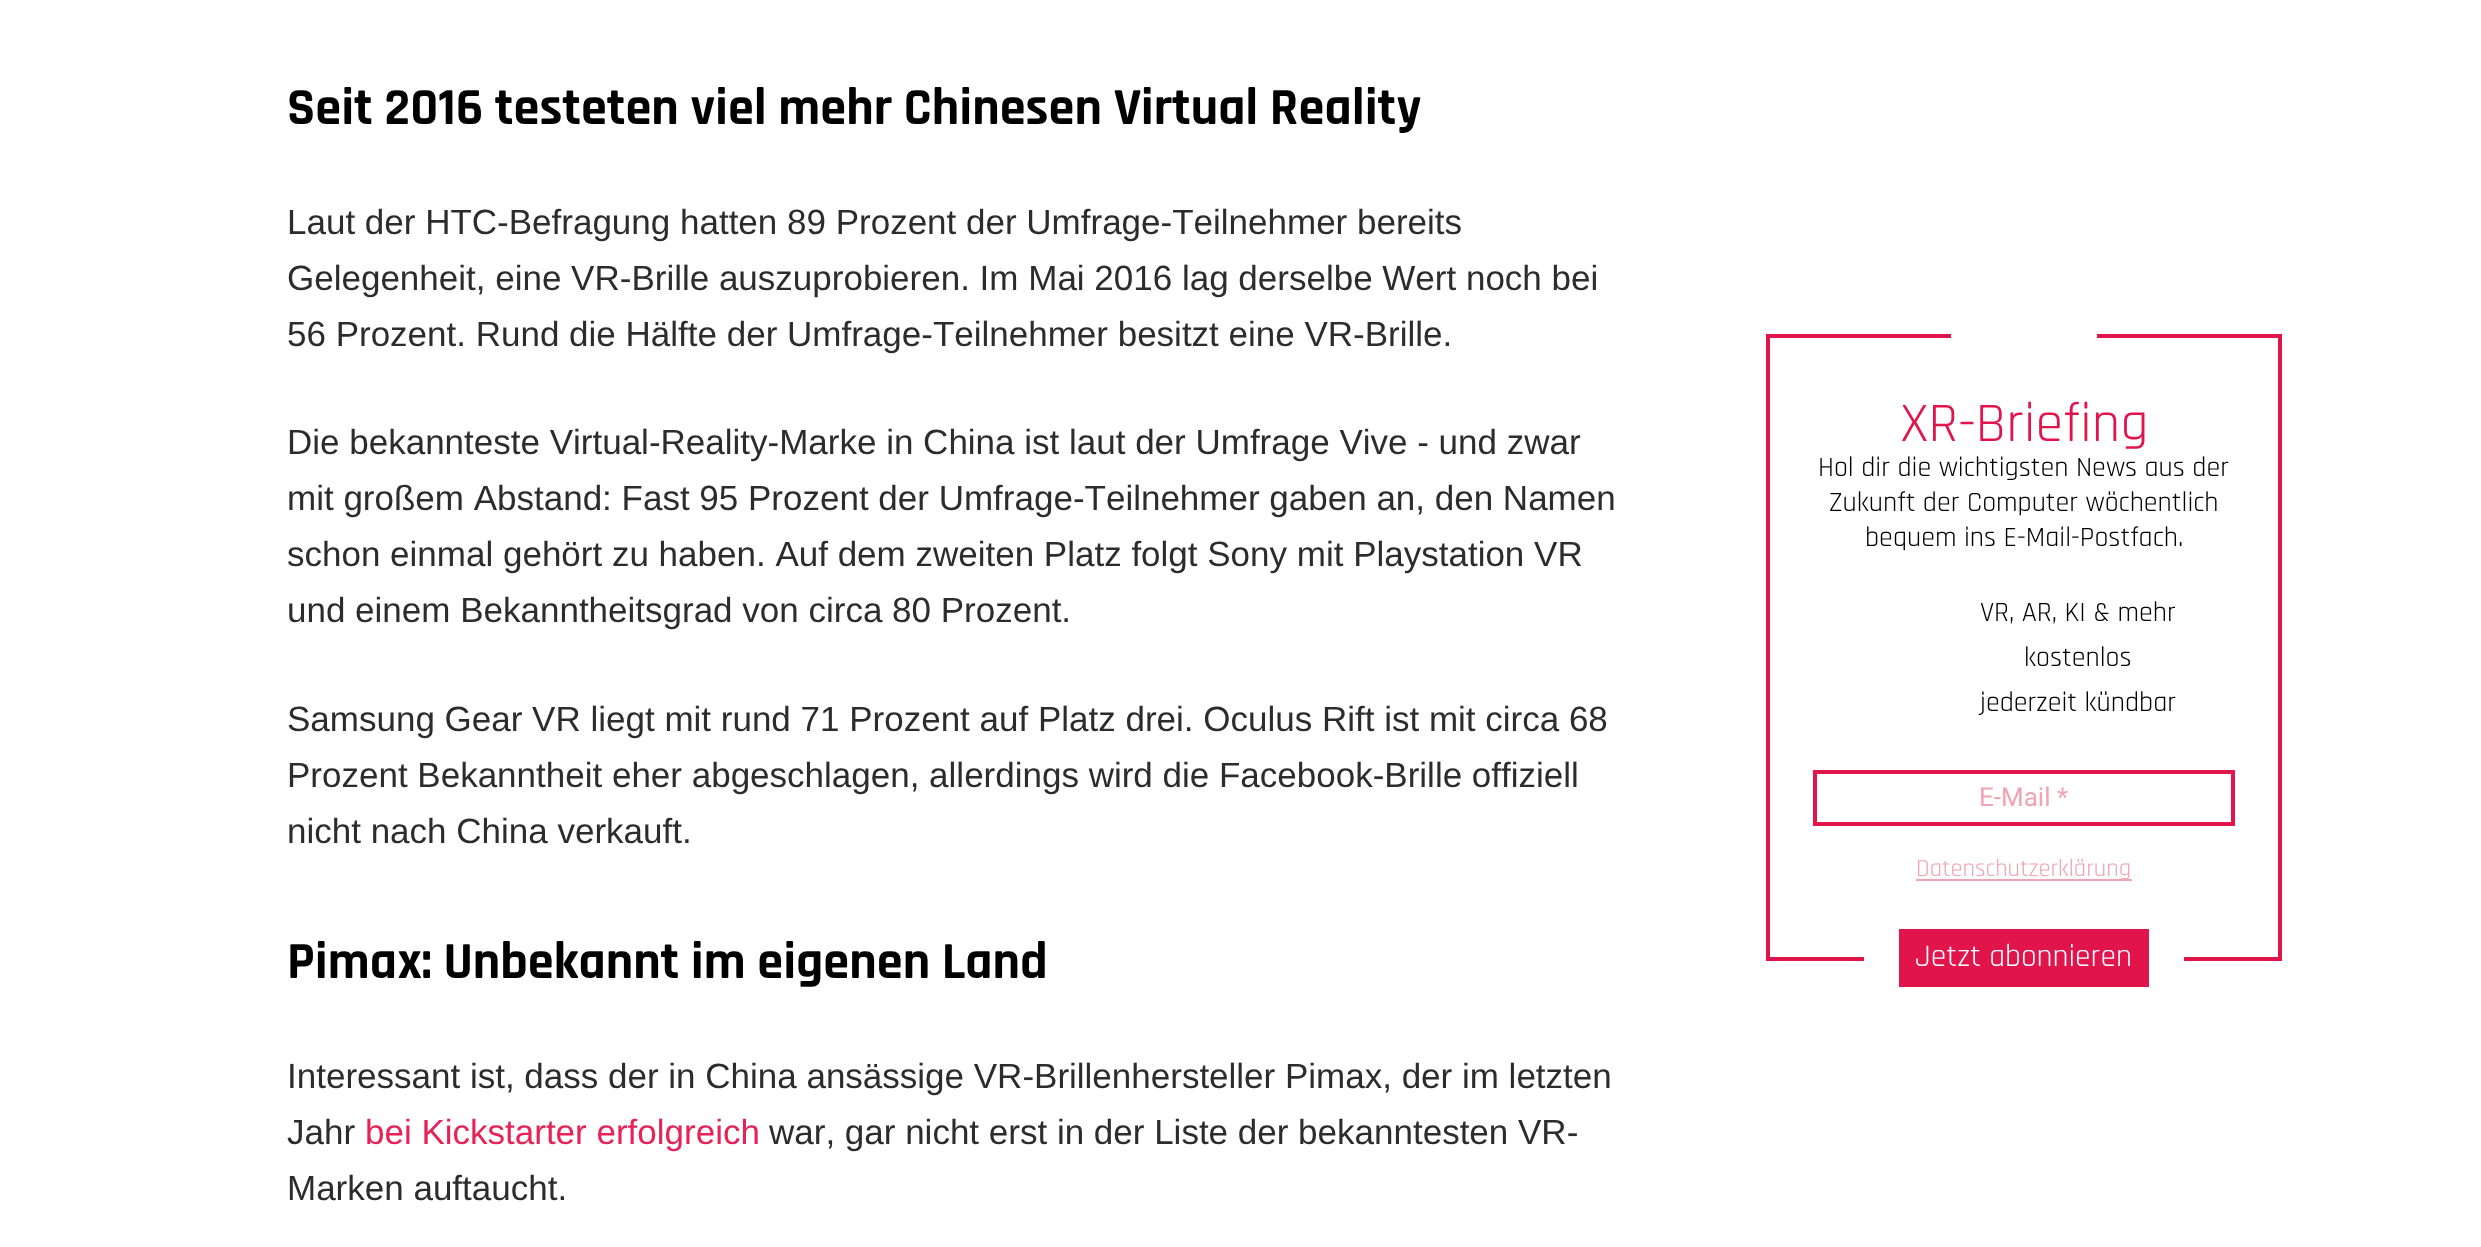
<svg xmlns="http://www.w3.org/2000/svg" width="2481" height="1247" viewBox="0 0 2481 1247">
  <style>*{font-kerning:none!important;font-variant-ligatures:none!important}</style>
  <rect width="100%" height="100%" fill="#fff"/>
  <path d="M1768 336h512v623H1768z" fill="none" stroke="#e1154c" stroke-width="4"/>
  <path d="M1951 334h146v4H1951z" fill="#fff"/>
  <path d="M1815 772h418v52H1815z" fill="none" stroke="#e1154c" stroke-width="4"/>
  <path d="M1916 879h216v2H1916z" fill="#f0a3b0"/>
  <path d="M2149 957h35v4H2149z" fill="#fff"/>
  <path d="M1864 957h35v4H1864z" fill="#fff"/>
  <path d="M1899 929h250v58H1899z" fill="#e1154c"/>
  <text x="287" y="124" font-family="Rajdhani" font-size="52.5" font-weight="bold" fill="#000">Seit 2016 testeten viel mehr Chinesen Virtual Reality</text>
  <g font-family="Liberation Sans" font-size="35" fill="#2c2c2c">
    <text x="287" y="234">Laut der HTC-Befragung hatten 89 Prozent der Umfrage-Teilnehmer bereits</text>
    <text x="287" y="290">Gelegenheit, eine VR-Brille auszuprobieren. Im Mai 2016 lag derselbe Wert noch bei</text>
    <text x="287" y="346">56 Prozent. Rund die Hälfte der Umfrage-Teilnehmer besitzt eine VR-Brille.</text>
    <text x="287" y="454">Die bekannteste Virtual-Reality-Marke in China ist laut der Umfrage Vive - und zwar</text>
    <text x="287" y="510">mit großem Abstand: Fast 95 Prozent der Umfrage-Teilnehmer gaben an, den Namen</text>
    <text x="287" y="566">schon einmal gehört zu haben. Auf dem zweiten Platz folgt Sony mit Playstation VR</text>
    <text x="287" y="622">und einem Bekanntheitsgrad von circa 80 Prozent.</text>
    <text x="287" y="731">Samsung Gear VR liegt mit rund 71 Prozent auf Platz drei. Oculus Rift ist mit circa 68</text>
    <text x="287" y="787">Prozent Bekanntheit eher abgeschlagen, allerdings wird die Facebook-Brille offiziell</text>
    <text x="287" y="843">nicht nach China verkauft.</text>
  </g>
  <text x="287" y="978" font-family="Rajdhani" font-size="52.5" font-weight="bold" fill="#000">Pimax: Unbekannt im eigenen Land</text>
  <g font-family="Liberation Sans" font-size="35" fill="#2c2c2c">
    <text x="287" y="1088">Interessant ist, dass der in China ansässige VR-Brillenhersteller Pimax, der im letzten</text>
    <text x="287" y="1144">Jahr</text>
  </g>
  <text x="365" y="1144" font-family="Liberation Sans" font-size="35" fill="#e62256">bei Kickstarter erfolgreich</text>
  <g font-family="Liberation Sans" font-size="35" fill="#2c2c2c">
    <text x="769" y="1144">war, gar nicht erst in der Liste der bekanntesten VR-</text>
    <text x="287" y="1200">Marken auftaucht.</text>
  </g>
  <text x="1900" y="441" font-family="Rajdhani" font-size="56" fill="#e1154c">XR-Briefing</text>
  <g font-family="Rajdhani" font-size="28" fill="#000">
    <text x="1818" y="476">Hol dir die wichtigsten News aus der</text>
    <text x="1829" y="511">Zukunft der Computer wöchentlich</text>
    <text x="1865" y="546">bequem ins E-Mail-Postfach.</text>
    <text x="1980" y="621">VR, AR, KI &amp; mehr</text>
    <text x="2024" y="666">kostenlos</text>
    <text x="1980" y="711">jederzeit kündbar</text>
  </g>
  <text x="1979" y="806" font-family="Roboto" font-size="26" fill="#f0a3b0">E-Mail *</text>
  <text x="1916" y="876" font-family="Rajdhani" font-size="24.5" fill="#f0a3b0">Datenschutzerklärung</text>
  <text x="1915" y="966" font-family="Rajdhani" font-size="31.5" fill="#fff">Jetzt abonnieren</text>
</svg>
